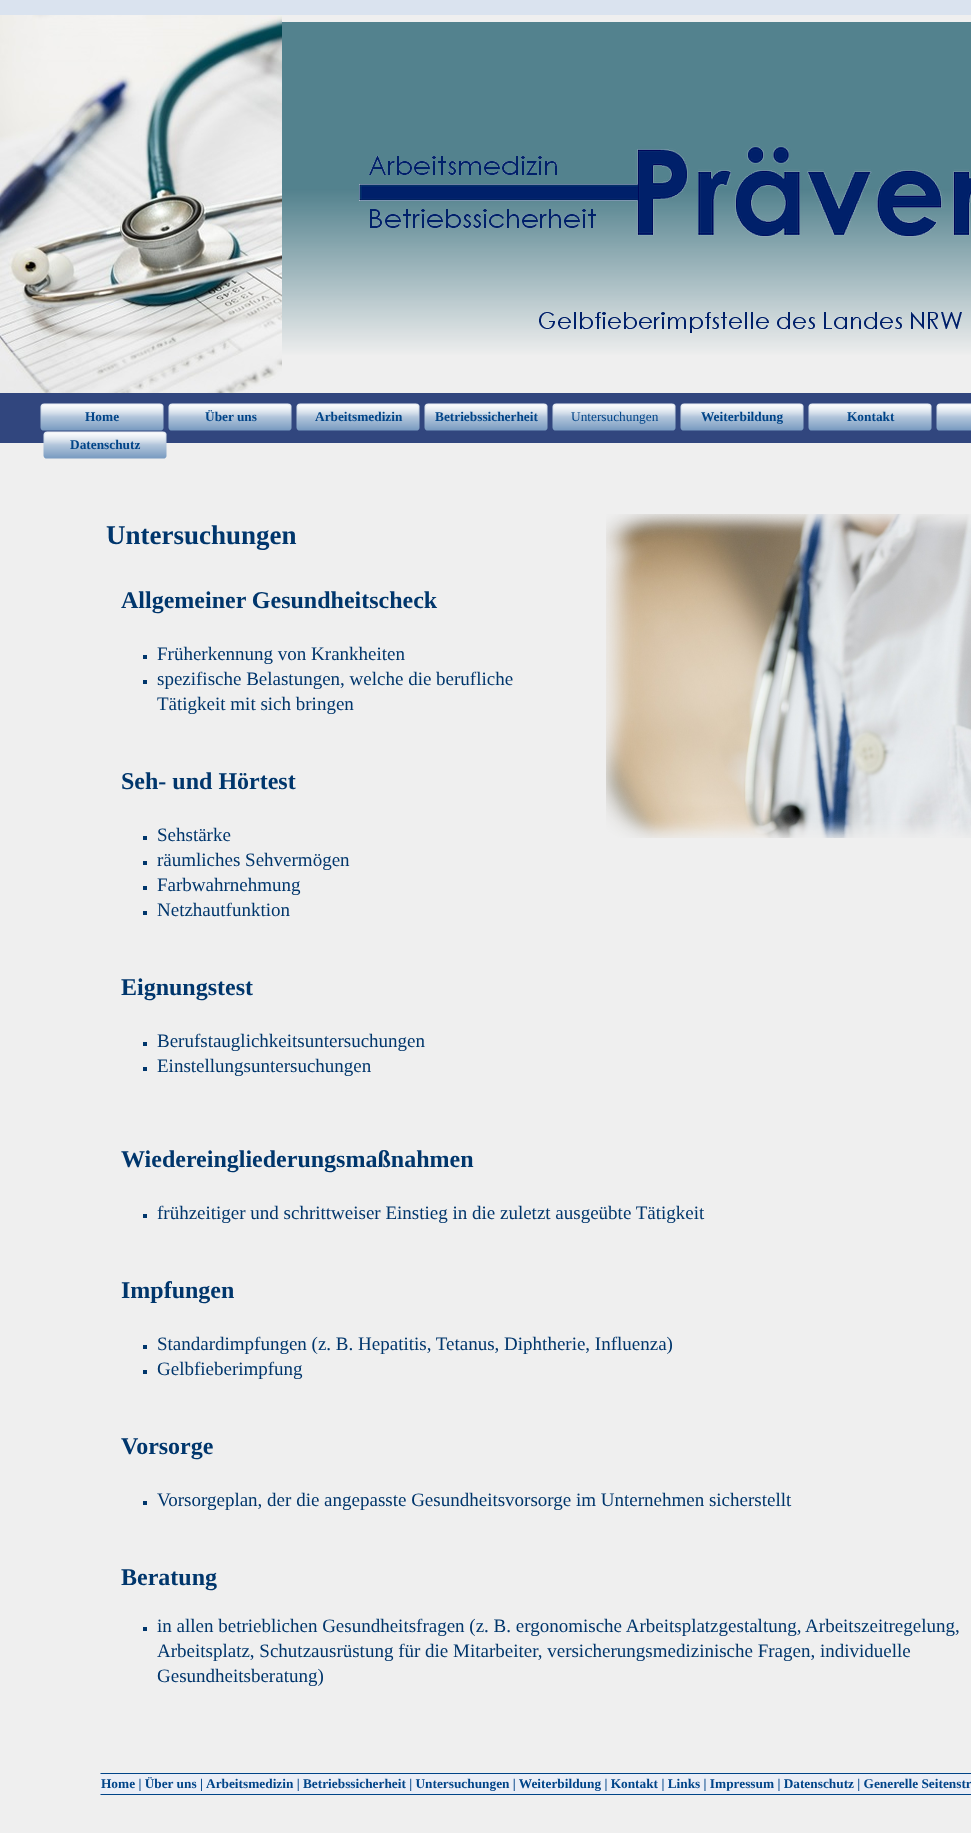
<svg xmlns="http://www.w3.org/2000/svg" width="971" height="1833" viewBox="0 0 971 1833">
  <rect width="100%" height="100%" fill="#dae3ef"/>
  <image x="0" y="15" width="971" height="378" href="img/1.png"/>
  <path d="M0 393h971v50H0z" fill="#31467e"/>
  <image x="40" y="403" width="124" height="28" href="img/2.png"/>
  <image x="168" y="403" width="124" height="28" href="img/2.png"/>
  <image x="296" y="403" width="124" height="28" href="img/2.png"/>
  <image x="424" y="403" width="124" height="28" href="img/2.png"/>
  <image x="552" y="403" width="124" height="28" href="img/2.png"/>
  <image x="680" y="403" width="124" height="28" href="img/2.png"/>
  <image x="808" y="403" width="124" height="28" href="img/2.png"/>
  <image x="936" y="403" width="35" height="28" href="img/3.png"/>
  <path d="M0 443h971v1390H0z" fill="#efefef"/>
  <image x="43" y="431" width="124" height="28" href="img/4.png"/>
  <path d="M143 655h4v4H143z" fill="#00366c"/>
  <path d="M143 680h4v4H143z" fill="#00366c"/>
  <path d="M143 836h4v4H143z" fill="#00366c"/>
  <path d="M143 861h4v4H143z" fill="#00366c"/>
  <path d="M143 886h4v4H143z" fill="#00366c"/>
  <path d="M143 911h4v4H143z" fill="#00366c"/>
  <path d="M143 1042h4v4H143z" fill="#00366c"/>
  <path d="M143 1067h4v4H143z" fill="#00366c"/>
  <image x="606" y="514" width="365" height="324" href="img/5.png"/>
  <path d="M143 1214h4v4H143z" fill="#00366c"/>
  <path d="M143 1345h4v4H143z" fill="#00366c"/>
  <path d="M143 1370h4v4H143z" fill="#00366c"/>
  <path d="M143 1501h4v4H143z" fill="#00366c"/>
  <path d="M143 1627h4v4H143z" fill="#00366c"/>
  <path d="M100 1773h871v22H100z" fill="#eaeef7"/>
  <path d="M100 1773H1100L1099 1774H101Z" fill="#048"/>
  <path d="M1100 1795H100L101 1794H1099Z" fill="#048"/>
  <g font-family="Liberation Serif" font-size="13.33" font-weight="bold" fill="#048">
    <text x="85" y="421">Home</text>
    <text x="205" y="421">Über uns</text>
    <text x="315" y="421">Arbeitsmedizin</text>
    <text x="435" y="421">Betriebssicherheit</text>
  </g>
  <text x="571" y="421" font-family="Liberation Serif" font-size="13.33" fill="#048">Untersuchungen</text>
  <g font-family="Liberation Serif" font-size="13.33" font-weight="bold" fill="#048">
    <text x="701" y="421">Weiterbildung</text>
    <text x="847" y="421">Kontakt</text>
    <text x="70" y="449">Datenschutz</text>
  </g>
  <text x="106" y="544" font-family="Liberation Serif" font-size="27" font-weight="bold" fill="#00366c">Untersuchungen</text>
  <text x="121" y="608" font-family="Liberation Serif" font-size="24" font-weight="bold" fill="#00366c">Allgemeiner Gesundheitscheck</text>
  <g font-family="Liberation Serif" font-size="19" fill="#00366c">
    <text x="157" y="660">Früherkennung von Krankheiten</text>
    <text x="157" y="685">spezifische Belastungen, welche die berufliche</text>
    <text x="157" y="710">Tätigkeit mit sich bringen</text>
  </g>
  <text x="121" y="789" font-family="Liberation Serif" font-size="24" font-weight="bold" fill="#00366c">Seh- und Hörtest</text>
  <g font-family="Liberation Serif" font-size="19" fill="#00366c">
    <text x="157" y="841">Sehstärke</text>
    <text x="157" y="866">räumliches Sehvermögen</text>
    <text x="157" y="891">Farbwahrnehmung</text>
    <text x="157" y="916">Netzhautfunktion</text>
  </g>
  <text x="121" y="995" font-family="Liberation Serif" font-size="24" font-weight="bold" fill="#00366c">Eignungstest</text>
  <g font-family="Liberation Serif" font-size="19" fill="#00366c">
    <text x="157" y="1047">Berufstauglichkeitsuntersuchungen</text>
    <text x="157" y="1072">Einstellungsuntersuchungen</text>
  </g>
  <text x="121" y="1167" font-family="Liberation Serif" font-size="24" font-weight="bold" fill="#00366c">Wiedereingliederungsmaßnahmen</text>
  <text x="157" y="1219" font-family="Liberation Serif" font-size="19" fill="#00366c">frühzeitiger und schrittweiser Einstieg in die zuletzt ausgeübte Tätigkeit</text>
  <text x="121" y="1298" font-family="Liberation Serif" font-size="24" font-weight="bold" fill="#00366c">Impfungen</text>
  <g font-family="Liberation Serif" font-size="19" fill="#00366c">
    <text x="157" y="1350">Standardimpfungen (z. B. Hepatitis, Tetanus, Diphtherie, Influenza)</text>
    <text x="157" y="1375">Gelbfieberimpfung</text>
  </g>
  <text x="121" y="1454" font-family="Liberation Serif" font-size="24" font-weight="bold" fill="#00366c">Vorsorge</text>
  <text x="157" y="1506" font-family="Liberation Serif" font-size="19" fill="#00366c">Vorsorgeplan, der die angepasste Gesundheitsvorsorge im Unternehmen sicherstellt</text>
  <text x="121" y="1585" font-family="Liberation Serif" font-size="24" font-weight="bold" fill="#00366c">Beratung</text>
  <g font-family="Liberation Serif" font-size="19" fill="#00366c">
    <text x="157" y="1632">in allen betrieblichen Gesundheitsfragen (z. B. ergonomische Arbeitsplatzgestaltung, Arbeitszeitregelung,</text>
    <text x="157" y="1657">Arbeitsplatz, Schutzausrüstung für die Mitarbeiter, versicherungsmedizinische Fragen, individuelle</text>
    <text x="157" y="1682">Gesundheitsberatung)</text>
  </g>
  <g font-family="Liberation Serif" font-size="13.33" font-weight="bold" fill="#048">
    <text x="101" y="1788">Home | Über uns</text>
    <text x="200" y="1788">|</text>
    <text x="206" y="1788">Arbeitsmedizin | Betriebssicherheit | Untersuchungen | Weiterbildung | Kontakt | Links | Impressum | Datenschutz | Generelle Seitenstr</text>
  </g>
</svg>
